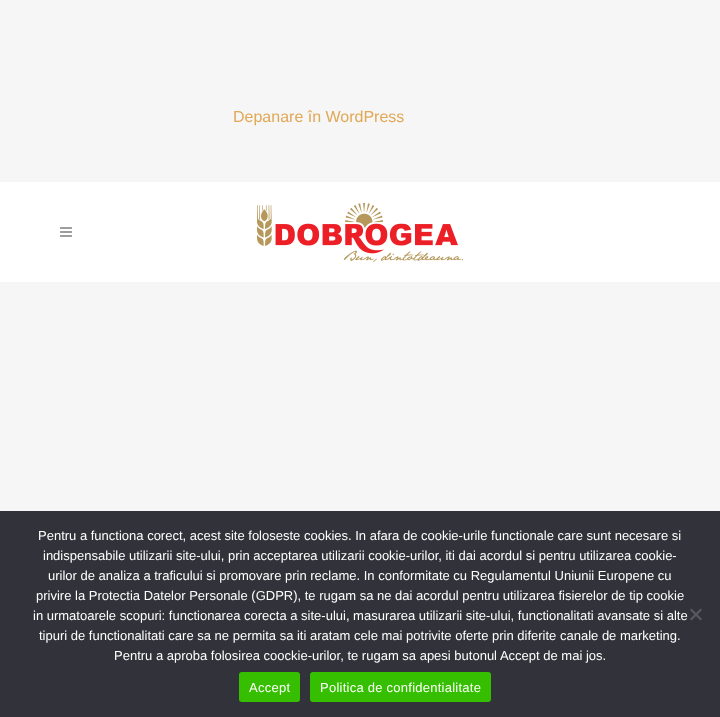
<svg xmlns="http://www.w3.org/2000/svg" width="720" height="717" viewBox="0 0 720 717">
  <rect width="100%" height="100%" fill="#f6f6f6"/>
  <path d="M0 182h720v100H0z" fill="#fff"/>
  <image x="60" y="227" width="12" height="10" href="img/1.png"/>
  <image x="257" y="203" width="206" height="59" href="img/2.png"/>
  <path d="M0 511h720v206H0z" fill="#32323a"/>
  <path d="M700.5 608.5L702 610L691.5 620.5L690 619Z" fill="#59595d"/>
  <path d="M690 610L691.5 608.5L702 619L700.5 620.5Z" fill="#59595d"/>
  <rect x="239" y="672" width="61" height="30" rx="3" fill="#36bf00"/>
  <rect x="310" y="672" width="181" height="30" rx="3" fill="#36bf00"/>
  <text x="233" y="122" font-family="Liberation Sans" font-size="16" fill="#e1a856">Depanare în WordPress</text>
  <g font-family="Liberation Sans" font-size="13" fill="#fff">
    <text x="38" y="540">Pentru a functiona corect, acest site foloseste cookies. In afara de cookie-urile functionale care sunt necesare si</text>
    <text x="43" y="560">indispensabile utilizarii site-ului, prin acceptarea utilizarii cookie-urilor, iti dai acordul si pentru utilizarea cookie-</text>
    <text x="48" y="580">urilor de analiza a traficului si promovare prin reclame. In conformitate cu Regulamentul Uniunii Europene cu</text>
    <text x="36" y="600">privire la Protectia Datelor Personale (GDPR), te rugam sa ne dai acordul pentru utilizarea fisierelor de tip cookie</text>
    <text x="33" y="620">in urmatoarele scopuri: functionarea corecta a site-ului, masurarea utilizarii site-ului, functionalitati avansate si alte</text>
    <text x="39" y="640">tipuri de functionalitati care sa ne permita sa iti aratam cele mai potrivite oferte prin diferite canale de marketing.</text>
    <text x="114" y="660">Pentru a aproba folosirea coockie-urilor, te rugam sa apesi butonul Accept de mai jos.</text>
  </g>
  <g font-family="Liberation Sans" font-size="13" letter-spacing="0.25" fill="#fff">
    <text x="249" y="692">Accept</text>
    <text x="320" y="692">Politica de confidentialitate</text>
  </g>
</svg>
